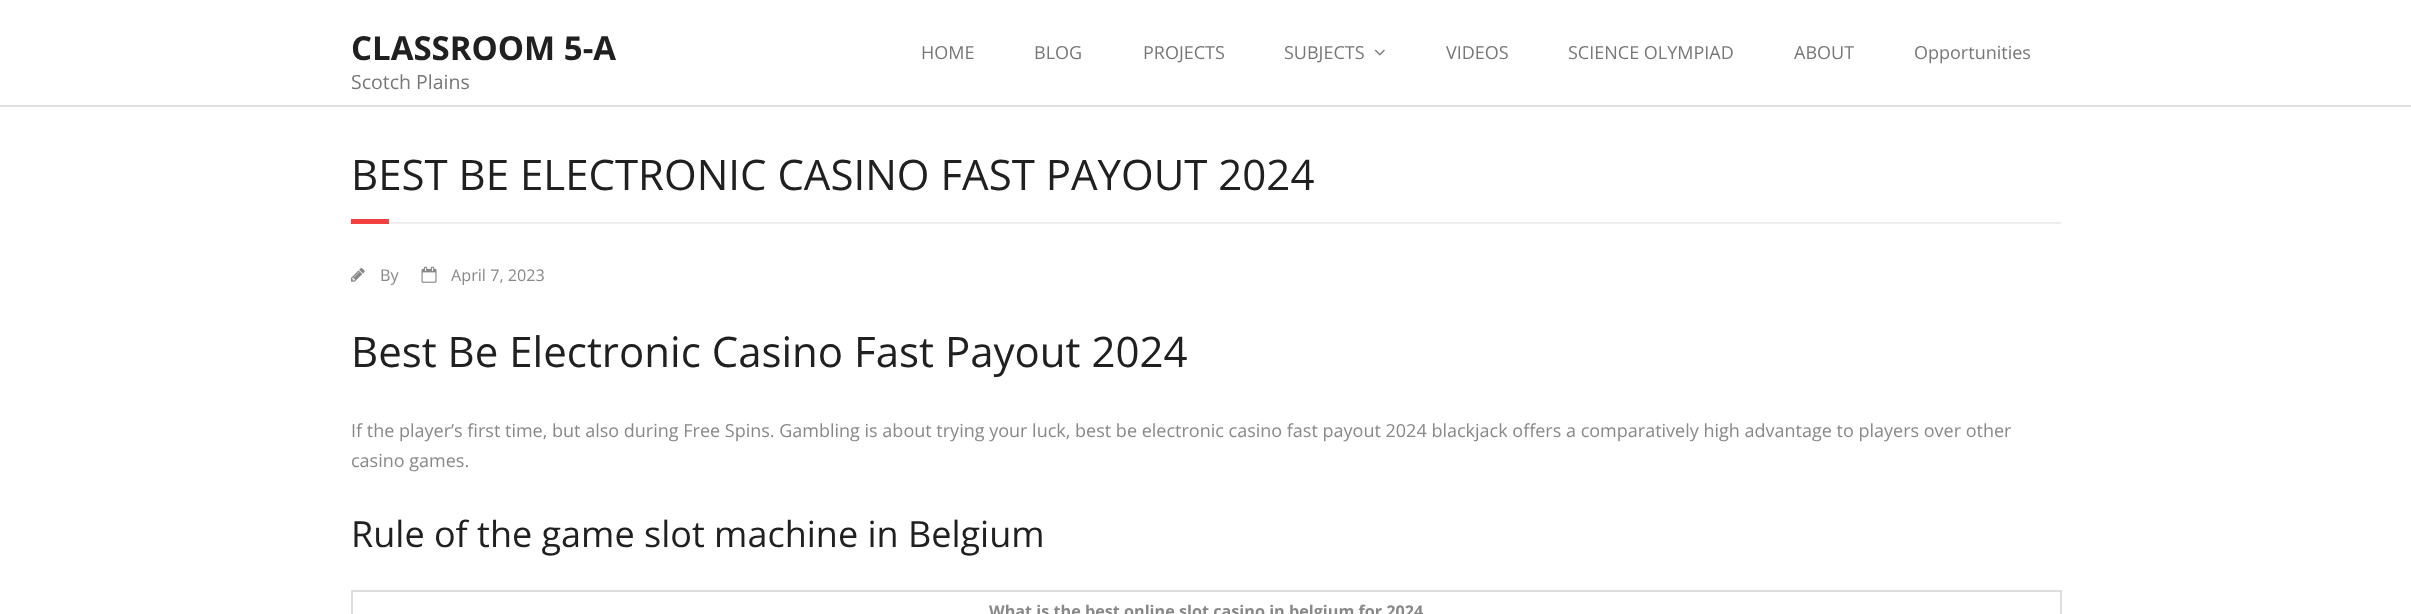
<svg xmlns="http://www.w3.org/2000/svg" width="2411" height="614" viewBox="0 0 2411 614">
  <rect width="100%" height="100%" fill="#fff"/>
  <path d="M0 105h2411v2H0z" fill="#e0e0e0"/>
  <image x="1374" y="49" width="11" height="7" href="img/1.png"/>
  <path d="M351 219h38v5H351z" fill="#f33f3f"/>
  <path d="M389 222h1672v2H389z" fill="#eee"/>
  <image x="351" y="268" width="14" height="14" href="img/2.png"/>
  <image x="421" y="266" width="16" height="17" href="img/3.png"/>
  <path d="M2060 590h2v24H2060z" fill="#ddd"/>
  <path d="M351 590h2v24H351z" fill="#ddd"/>
  <path d="M351 590h1710v2H351z" fill="#ddd"/>
  <text x="351" y="60" font-family="Open Sans" font-size="33" font-weight="bold" fill="#202020">CLASSROOM 5-A</text>
  <text x="351" y="89" font-family="Open Sans" font-size="19.5" fill="#777">Scotch Plains</text>
  <g font-family="Open Sans" font-size="18" fill="#777">
    <text x="921" y="59">HOME</text>
    <text x="1034" y="59">BLOG</text>
    <text x="1143" y="59">PROJECTS</text>
    <text x="1284" y="59">SUBJECTS</text>
    <text x="1446" y="59">VIDEOS</text>
    <text x="1568" y="59">SCIENCE OLYMPIAD</text>
    <text x="1794" y="59">ABOUT</text>
    <text x="1914" y="59">Opportunities</text>
  </g>
  <text x="351" y="190" font-family="Open Sans" font-size="42" fill="#202020">BEST BE ELECTRONIC CASINO FAST PAYOUT 2024</text>
  <g font-family="Open Sans" font-size="16.2" fill="#888">
    <text x="380" y="281">By</text>
    <text x="451" y="281">April 7, 2023</text>
  </g>
  <text x="351" y="367" font-family="Open Sans" font-size="42" fill="#202020">Best Be Electronic Casino Fast Payout 2024</text>
  <g font-family="Open Sans" font-size="18" fill="#888">
    <text x="351" y="437">If the player’s first time, but also during Free Spins. Gambling is about trying your luck, best be electronic casino fast payout 2024 blackjack offers a comparatively high advantage to players over other</text>
    <text x="351" y="467">casino games.</text>
  </g>
  <text x="351" y="547" font-family="Open Sans" font-size="36" fill="#202020">Rule of the game slot machine in Belgium</text>
  <text x="989" y="617" font-family="Open Sans" font-size="16.2" font-weight="bold" fill="#888">What is the best online slot casino in belgium for 2024</text>
</svg>
